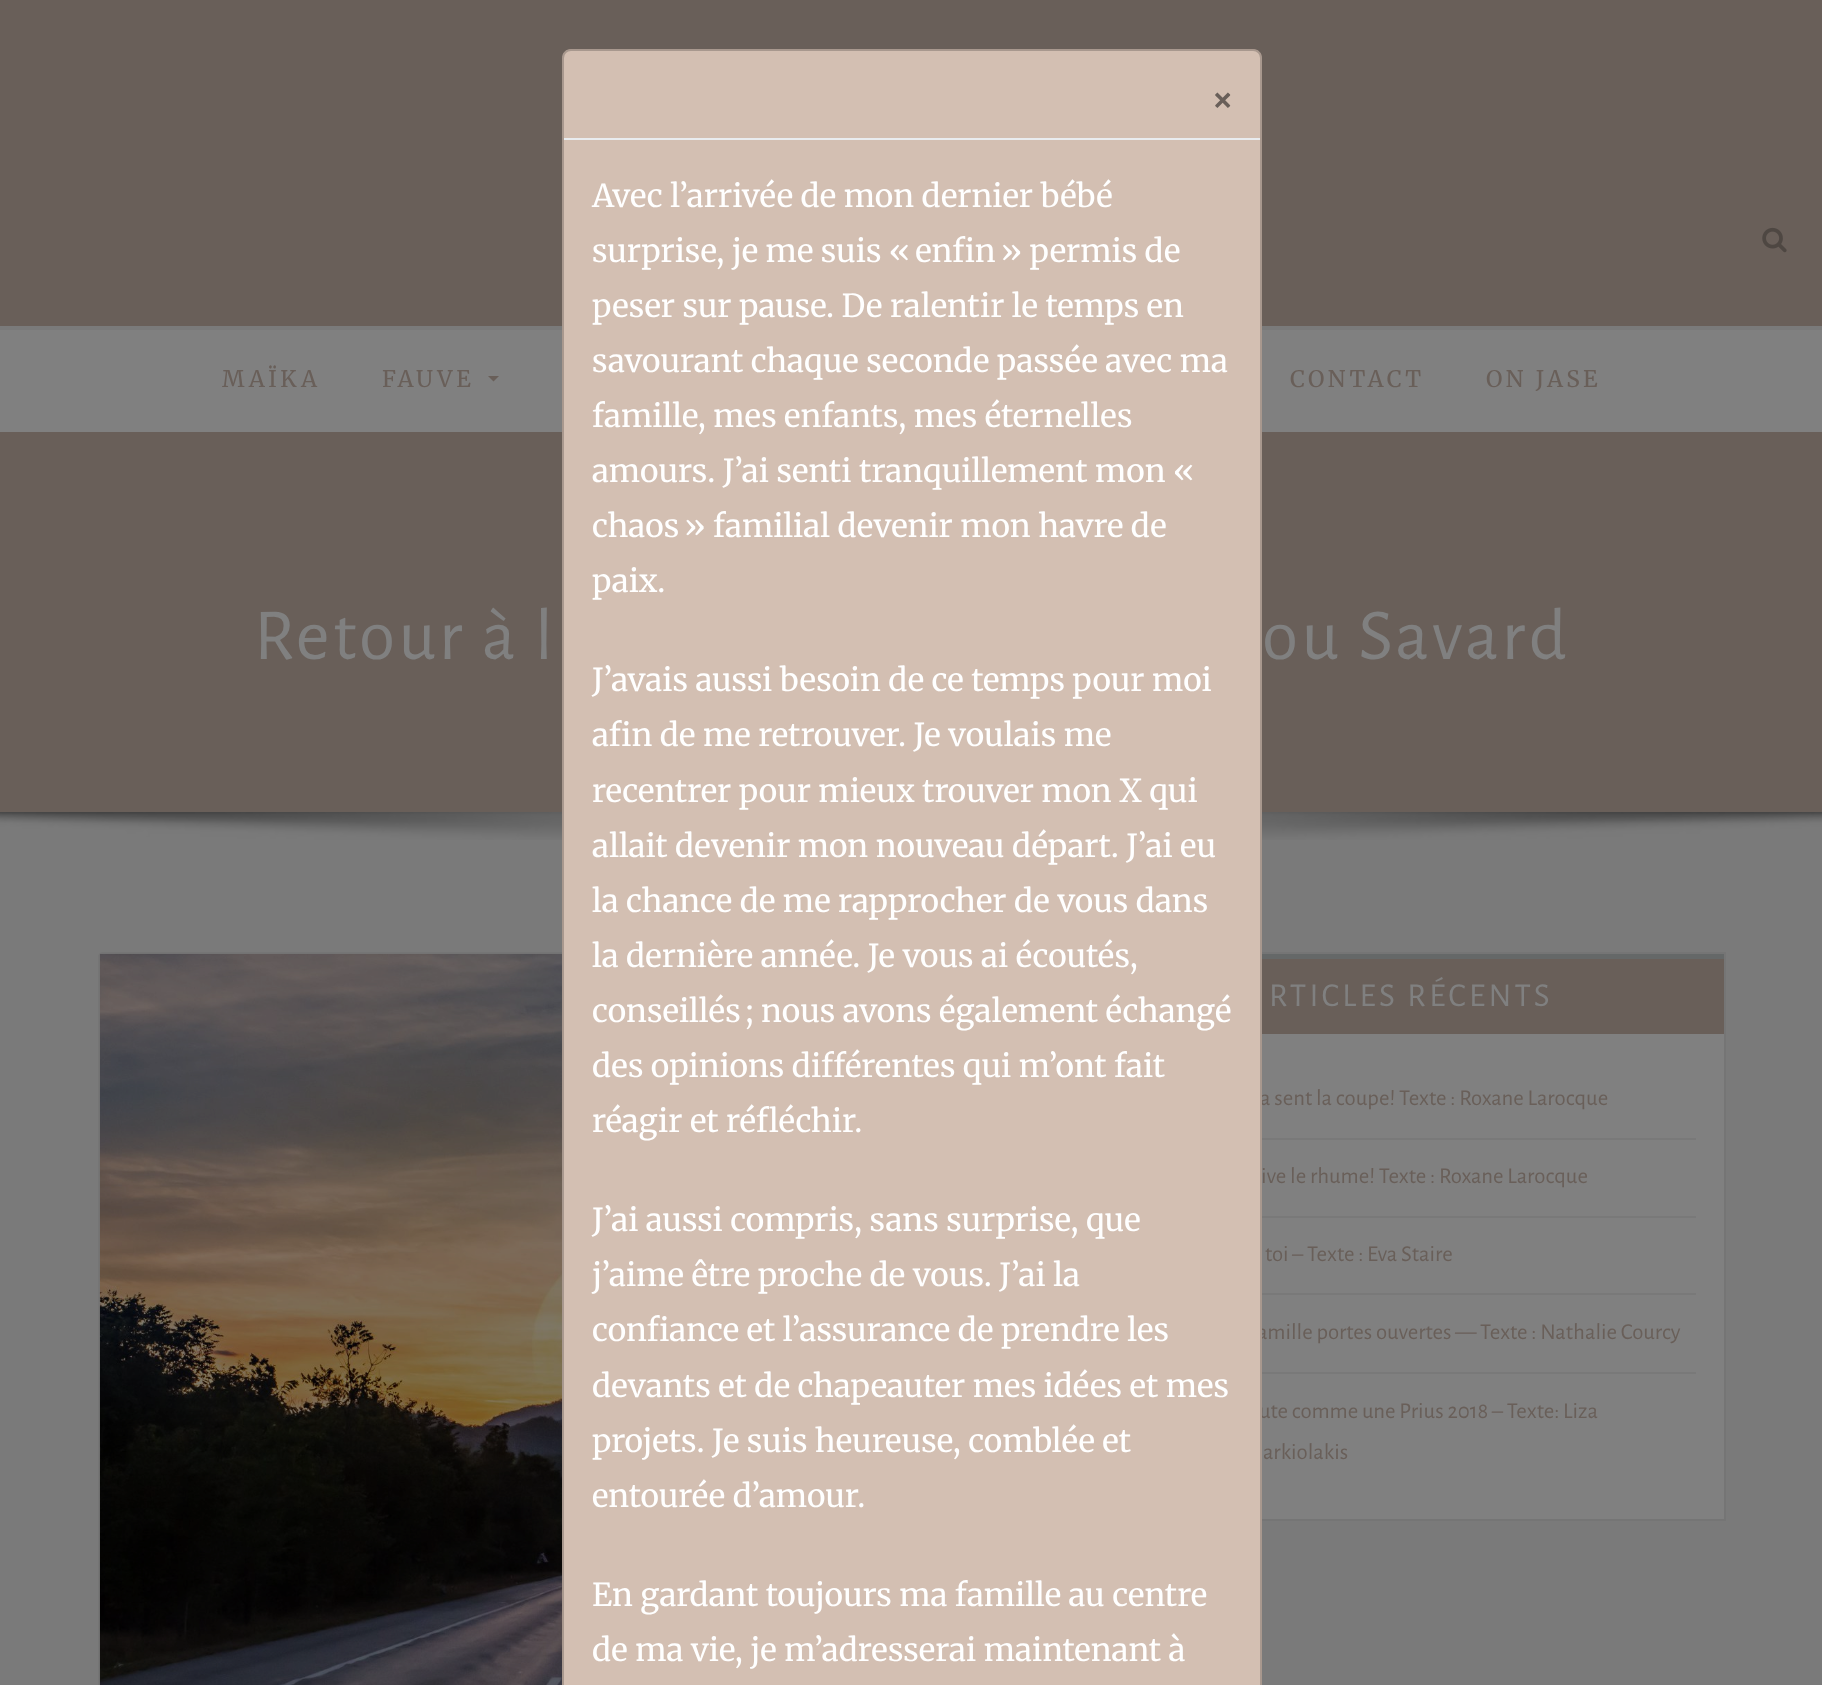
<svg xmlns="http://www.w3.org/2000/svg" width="1822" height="1685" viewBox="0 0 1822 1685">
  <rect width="100%" height="100%" fill="#7a7a7a"/>
  <path d="M0 0h1822v326H0z" fill="#695f59"/>
  <image x="1762" y="227" width="25" height="26" href="img/1.png"/>
  <path d="M0 330h1822v102H0z" fill="#808080"/>
  <path d="M488 376H499L493.5 381.5Z" fill="#695f59"/>
  <path d="M0 432h1822v380H0z" fill="#695f59"/>
  <image x="0" y="812" width="1822" height="28" href="img/2.png"/>
  <rect x="99" y="953" width="1066" height="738" rx="4" fill="none" stroke="#757575" stroke-width="2"/>
  <image x="99" y="953" width="463" height="732" href="img/3.png"/>
  <path d="M1262 1034h462v485H1262z" fill="#808080"/>
  <path d="M1219 953h506v567H1219z" fill="none" stroke="#757575" stroke-width="2"/>
  <path d="M1262 959h462v75H1262z" fill="#695f59"/>
  <path d="M1262 954h462v5H1262z" fill="#656868"/>
  <path d="M1262 1138h434v2H1262z" fill="#797979"/>
  <path d="M1262 1216h434v2H1262z" fill="#797979"/>
  <path d="M1262 1293h434v2H1262z" fill="#797979"/>
  <path d="M1262 1372h434v2H1262z" fill="#797979"/>
  <g font-family="Merriweather" font-size="22.75" letter-spacing="3.5" fill="#695f59">
    <text x="222" y="387">MAÏKA</text>
    <text x="382" y="387">FAUVE</text>
    <text x="1290" y="387">CONTACT</text>
    <text x="1486" y="387">ON JASE</text>
  </g>
  <g font-family="Alegreya Sans" font-size="73.5" letter-spacing="3.5" fill="#808080">
    <text x="254" y="659">Retour à l</text>
    <text x="1262" y="659">ou Savard</text>
  </g>
  <text x="1269" y="1006" font-family="Alegreya Sans" font-size="33.5" letter-spacing="3.4" fill="#808080">RTICLES RÉCENTS</text>
  <g font-family="Alegreya Sans" font-size="22.75" fill="#695f59">
    <text x="1260" y="1105">a sent la coupe! Texte : Roxane Larocque</text>
    <text x="1261" y="1183">ive le rhume! Texte : Roxane Larocque</text>
    <text x="1265" y="1261">toi – Texte : Eva Staire</text>
    <text x="1257" y="1339">amille portes ouvertes — Texte : Nathalie Courcy</text>
    <text x="1259" y="1418">ute comme une Prius 2018 – Texte: Liza</text>
  </g>
  <path d="M571 49H1253C1258 49 1262 53 1262 58V1685H562V58C562 53 566 49 571 49Z" fill="#d3bfb2"/>
  <rect x="563" y="50" width="698" height="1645" rx="8" fill="none" stroke="#00000033" stroke-width="2"/>
  <g font-family="Merriweather" font-size="31.5" fill="#fff">
    <text x="592" y="1661">de ma vie, je m’adresserai maintenant à</text>
    <text x="592" y="1606">En gardant toujours ma famille au centre</text>
    <text x="592" y="1507">entourée d’amour.</text>
    <text x="592" y="1452">projets. Je suis heureuse, comblée et</text>
    <text x="592" y="1397">devants et de chapeauter mes idées et mes</text>
    <text x="592" y="1341">confiance et l’assurance de prendre les</text>
    <text x="592" y="1286">j’aime être proche de vous. J’ai la</text>
    <text x="592" y="1231">J’ai aussi compris, sans surprise, que</text>
    <text x="592" y="1132">réagir et réfléchir.</text>
    <text x="592" y="1077">des opinions différentes qui m’ont fait</text>
    <text x="592" y="1022">conseillés ; nous avons également échangé</text>
    <text x="592" y="967">la dernière année. Je vous ai écoutés,</text>
    <text x="592" y="912">la chance de me rapprocher de vous dans</text>
    <text x="592" y="857">allait devenir mon nouveau départ. J’ai eu</text>
    <text x="592" y="802">recentrer pour mieux trouver mon X qui</text>
    <text x="592" y="746">afin de me retrouver. Je voulais me</text>
    <text x="592" y="691">J’avais aussi besoin de ce temps pour moi</text>
    <text x="592" y="592">paix.</text>
    <text x="592" y="537">chaos » familial devenir mon havre de</text>
    <text x="592" y="482">amours. J’ai senti tranquillement mon «</text>
    <text x="592" y="427">famille, mes enfants, mes éternelles</text>
    <text x="592" y="372">savourant chaque seconde passée avec ma</text>
    <text x="592" y="317">peser sur pause. De ralentir le temps en</text>
    <text x="592" y="262">surprise, je me suis « enfin » permis de</text>
    <text x="592" y="207">Avec l’arrivée de mon dernier bébé</text>
  </g>
  <text x="1212" y="112" font-family="Alegreya Sans" font-size="42" font-weight="bold" fill="#695f59">×</text>
  <path d="M564 138h696v2H564z" fill="#e9ecef"/>
  <text x="1263" y="1459" font-family="Alegreya Sans" font-size="22.75" fill="#695f59">arkiolakis</text>
</svg>
